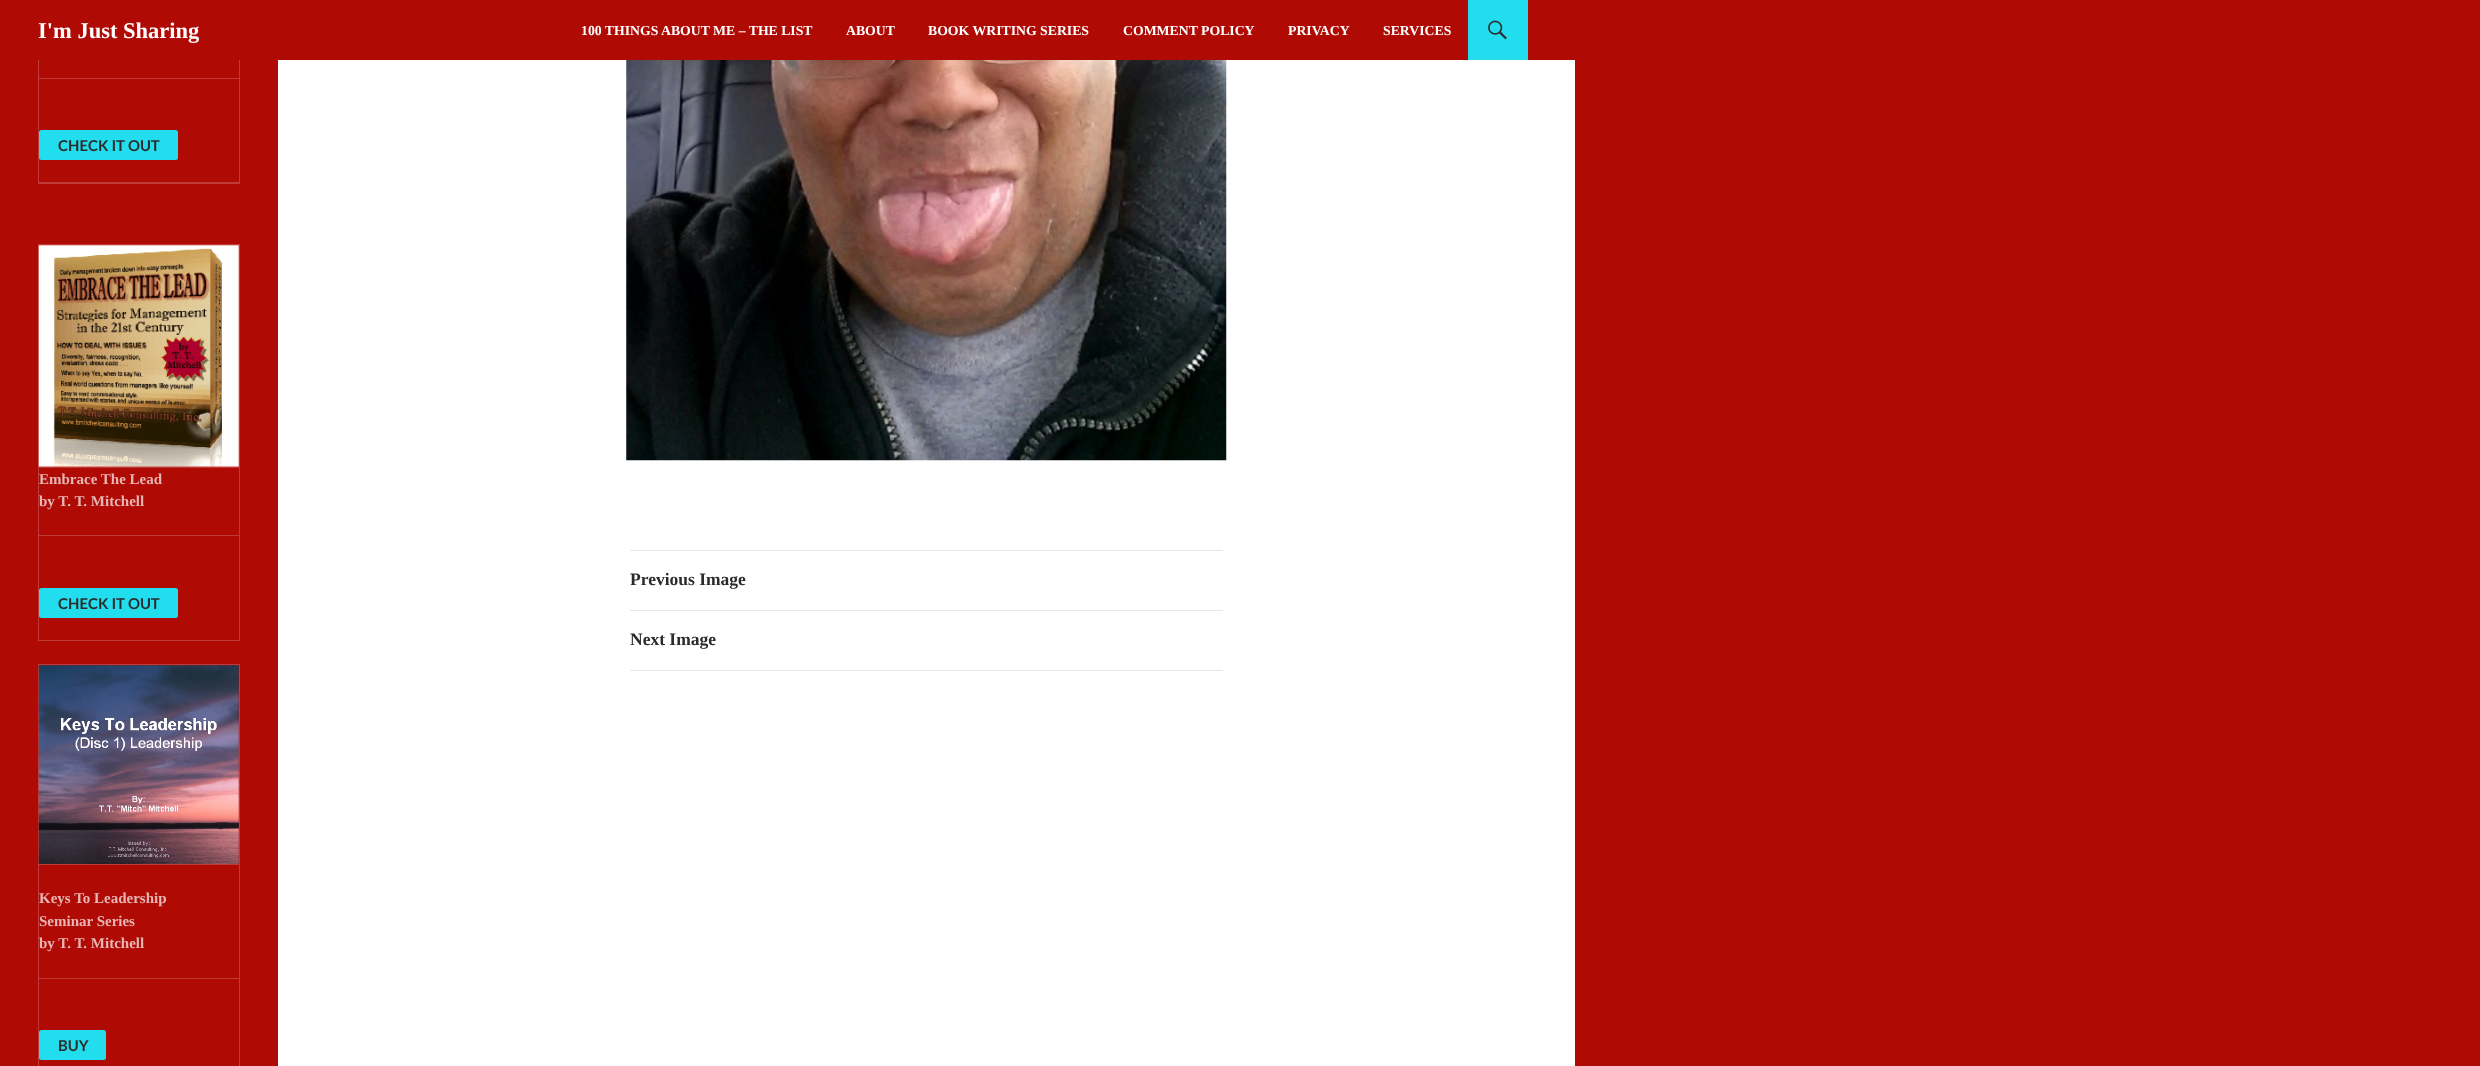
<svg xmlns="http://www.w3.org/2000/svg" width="2480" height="1066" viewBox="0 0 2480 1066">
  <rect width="100%" height="100%" fill="#b00a05"/>
  <path d="M278 60h1297v1006H278z" fill="#fff"/>
  <path d="M38 184V-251L39-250V184Z" fill="#c03b37"/>
  <path d="M240 10V184L239 182V10Z" fill="#c03b37"/>
  <path d="M38 0h202v60H38z" fill="#b00a05"/>
  <path d="M1468 0h60v60H1468z" fill="#2de"/>
  <image x="1488" y="20" width="19" height="20" href="img/1.png"/>
  <path d="M240 184H39V182H239Z" fill="#ffffff33"/>
  <path d="M39 78h200v1H39z" fill="#c03b37"/>
  <rect x="39" y="130" width="139" height="30" rx="2.5" fill="#2de"/>
  <path d="M38 244H240V245H39Z" fill="#c03b37"/>
  <path d="M38 641V244L39 245V641Z" fill="#ffffff33"/>
  <path d="M240 245V468L239 466V245Z" fill="#c03b37"/>
  <path d="M240 468H39V466H239Z" fill="#ffffff33"/>
  <image x="38" y="245" width="201" height="222" href="img/2.png"/>
  <path d="M240 468V641L239 640V468Z" fill="#c03b37"/>
  <path d="M240 641H39V640H239Z" fill="#ffffff33"/>
  <path d="M39 535h200v1H39z" fill="#c03b37"/>
  <rect x="39" y="588" width="139" height="30" rx="2.5" fill="#2de"/>
  <path d="M38 664H240V665H39Z" fill="#c03b37"/>
  <path d="M38 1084V664L39 665V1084Z" fill="#ffffff33"/>
  <path d="M240 665V865L239 864V665Z" fill="#c03b37"/>
  <path d="M240 865H39V864H239Z" fill="#ffffff33"/>
  <image x="38" y="665" width="201" height="199" href="img/3.png"/>
  <path d="M240 865V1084L239 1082V865Z" fill="#c03b37"/>
  <path d="M39 978h200v1H39z" fill="#c03b37"/>
  <rect x="39" y="1030" width="67" height="30" rx="2.5" fill="#2de"/>
  <image x="626" y="60" width="601" height="401" href="img/4.png"/>
  <path d="M630 550h593v1H630z" fill="#e6e6e6"/>
  <path d="M630 610h593v1H630z" fill="#e6e6e6"/>
  <path d="M630 670h593v1H630z" fill="#e6e6e6"/>
  <text x="38" y="38" font-family="Liberation Serif" font-size="22.5" font-weight="bold" fill="#fff">I'm Just Sharing</text>
  <g font-family="Liberation Serif" font-size="13.75" font-weight="bold" fill="#fff">
    <text x="581" y="35">100 THINGS ABOUT ME – THE LIST</text>
    <text x="846" y="35">ABOUT</text>
    <text x="928" y="35">BOOK WRITING SERIES</text>
    <text x="1123" y="35">COMMENT POLICY</text>
    <text x="1288" y="35">PRIVACY</text>
    <text x="1383" y="35">SERVICES</text>
  </g>
  <text x="58" y="151" font-family="Lato" font-size="15" font-weight="bold" fill="#2b2b2b">CHECK IT OUT</text>
  <g font-family="Liberation Serif" font-size="15" font-weight="bold" fill="#e7b6b4">
    <text x="39" y="484">Embrace The Lead</text>
    <text x="39" y="506">by T. T. Mitchell</text>
  </g>
  <text x="58" y="609" font-family="Lato" font-size="15" font-weight="bold" fill="#2b2b2b">CHECK IT OUT</text>
  <g font-family="Liberation Serif" font-size="15" font-weight="bold" fill="#e7b6b4">
    <text x="39" y="903">Keys To Leadership</text>
    <text x="39" y="926">Seminar Series</text>
    <text x="39" y="948">by T. T. Mitchell</text>
  </g>
  <text x="58" y="1051" font-family="Lato" font-size="15" font-weight="bold" fill="#2b2b2b">BUY</text>
  <g font-family="Liberation Serif" font-size="17.5" font-weight="bold" fill="#2b2b2b">
    <text x="630" y="585">Previous Image</text>
    <text x="630" y="645">Next Image</text>
  </g>
</svg>
